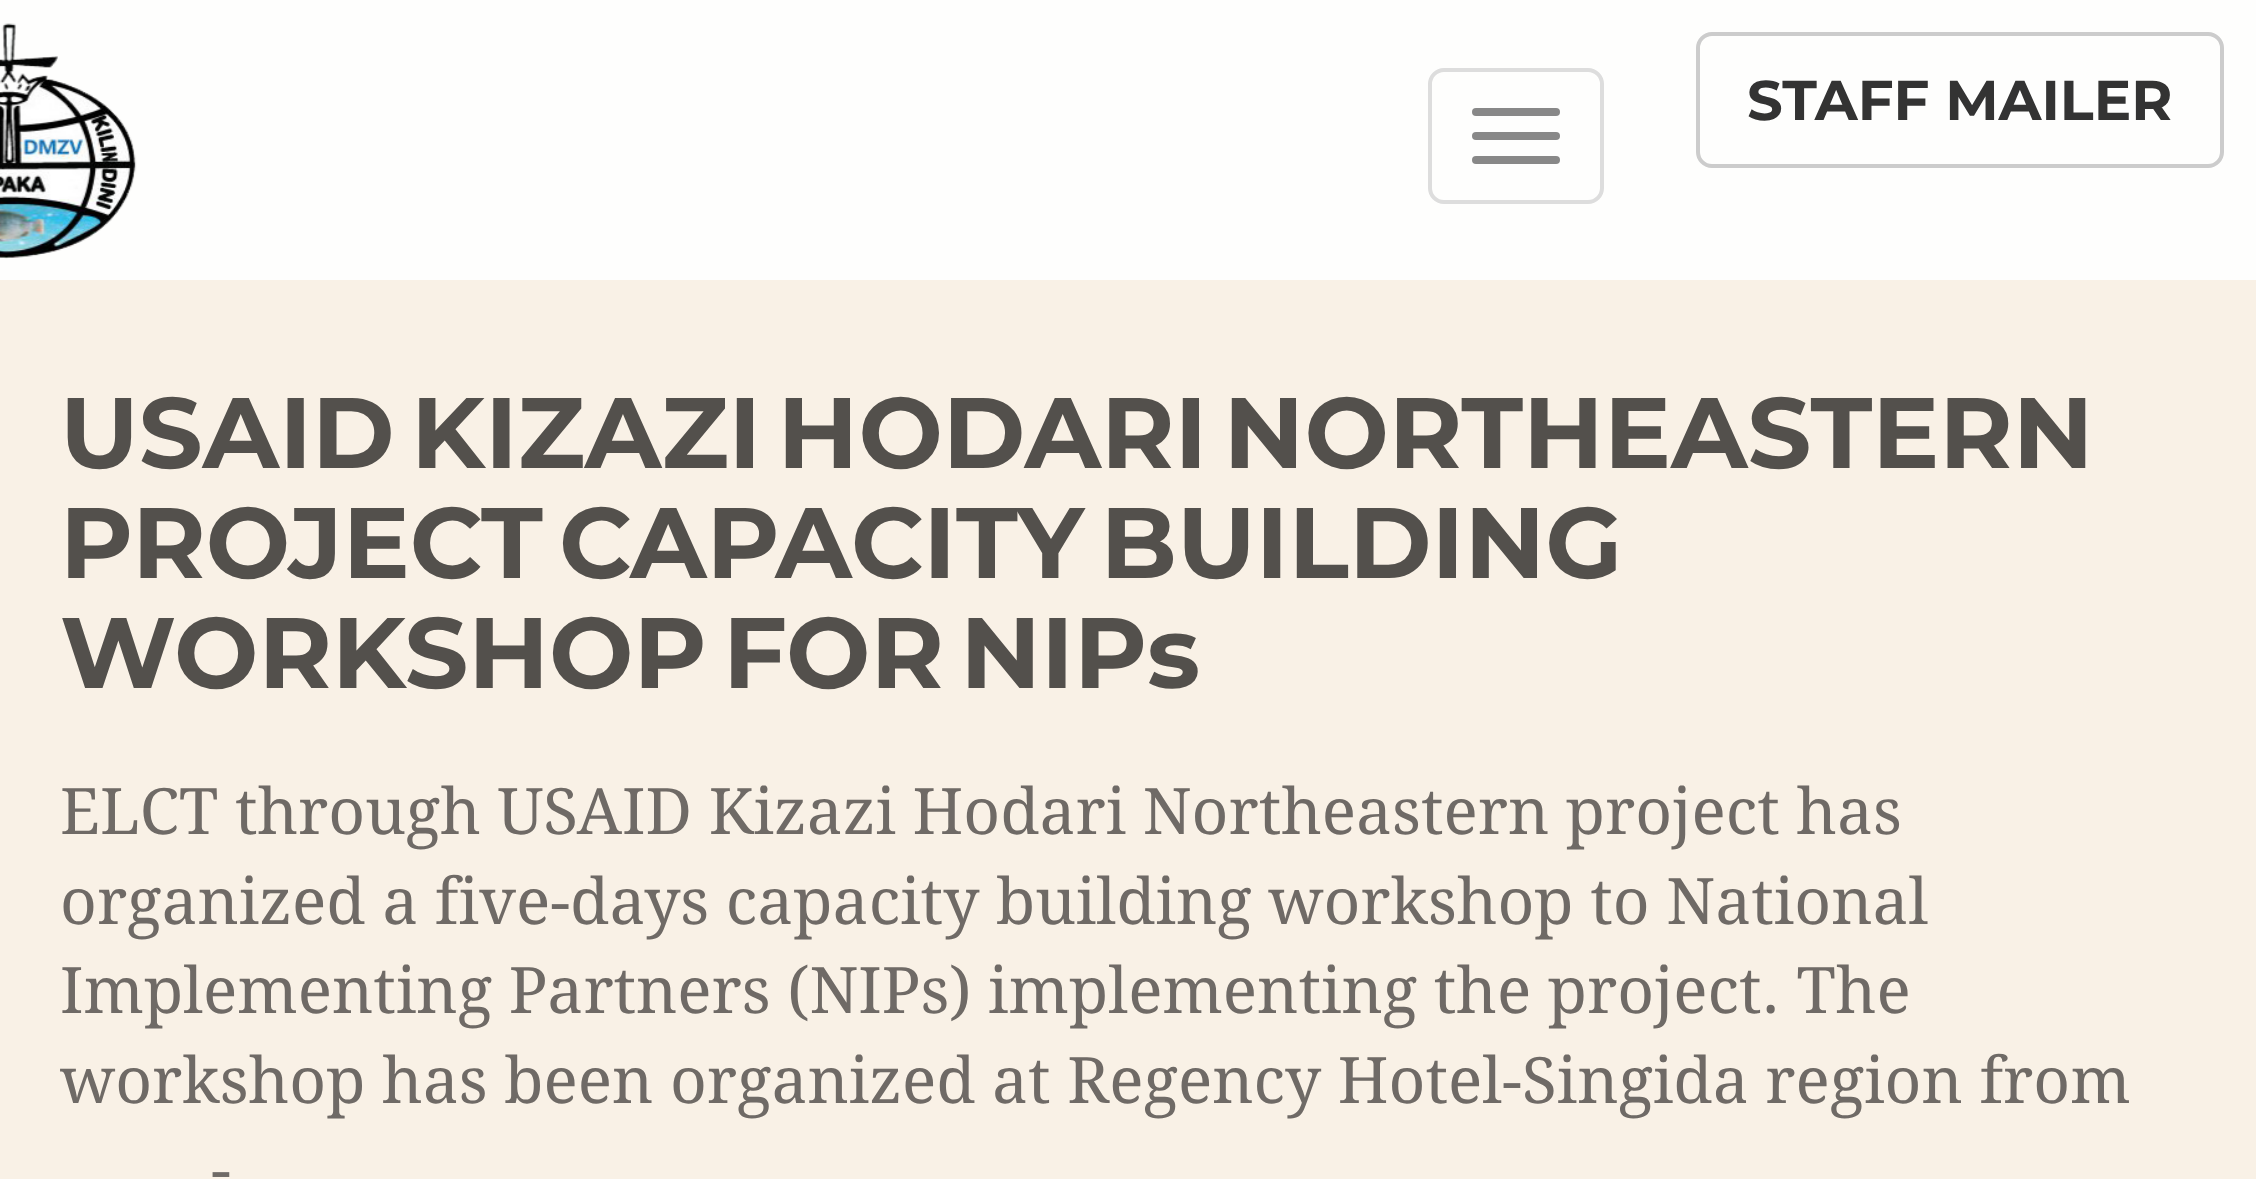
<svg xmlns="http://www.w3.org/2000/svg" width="2256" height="1179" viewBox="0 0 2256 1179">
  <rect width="100%" height="100%" fill="#f9f1e6"/>
  <path d="M0 0h2256v280H0z" fill="#fefefd"/>
  <image x="0" y="23" width="137" height="236" href="img/1.png"/>
  <rect x="1430" y="70" width="172" height="132" rx="14" fill="none" stroke="#ddd" stroke-width="4"/>
  <rect x="1472" y="108" width="88" height="8" rx="4" fill="#888"/>
  <rect x="1472" y="132" width="88" height="8" rx="4" fill="#888"/>
  <rect x="1472" y="156" width="88" height="8" rx="4" fill="#888"/>
  <rect x="1698" y="34" width="524" height="132" rx="14" fill="none" stroke="#ccc" stroke-width="4"/>
  <text x="1747" y="120" font-family="Montserrat" font-size="56" font-weight="bold" fill="#333">STAFF MAILER</text>
  <g font-family="Montserrat" font-size="100" font-weight="bold" fill="#53504c">
    <text x="60" y="468" word-spacing="-12">USAID KIZAZI HODARI NORTHEASTERN</text>
    <text x="60" y="578" word-spacing="-12">PROJECT CAPACITY BUILDING</text>
    <text x="60" y="688" word-spacing="-12">WORKSHOP FOR NIPs</text>
  </g>
  <g font-family="Droid Serif" font-size="64" fill="#6f6a66">
    <text x="60" y="834">ELCT through USAID Kizazi Hodari Northeastern project has</text>
    <text x="60" y="924">organized a five-days capacity building workshop to National</text>
    <text x="60" y="1013">Implementing Partners (NIPs) implementing the project. The</text>
    <text x="60" y="1103">workshop has been organized at Regency Hotel-Singida region from</text>
    <text x="211" y="1192">-</text>
  </g>
</svg>
